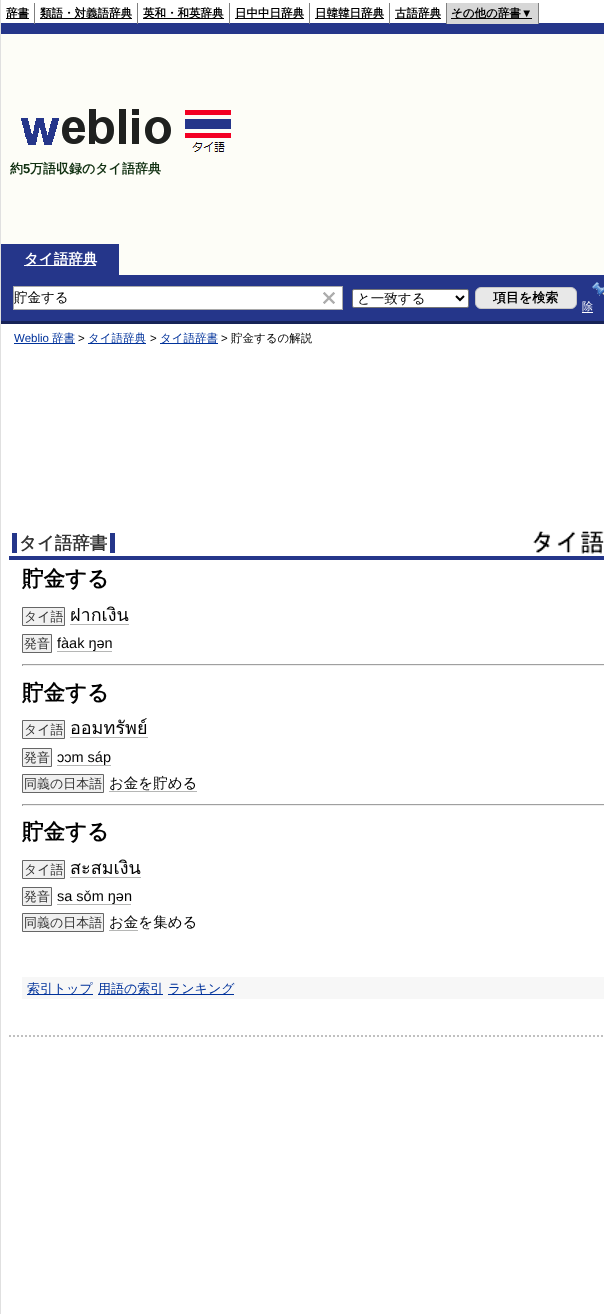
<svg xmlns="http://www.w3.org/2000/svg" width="604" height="1314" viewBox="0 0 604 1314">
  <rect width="100%" height="100%" fill="#fff"/>
  <path d="M0 0h1v1314H0z" fill="#e0e0e0"/>
  <path d="M1 23h603v11H1z" fill="#25368a"/>
  <path d="M34 3h1v21H34z" fill="#7f7f7f"/>
  <path d="M6 18h23v1H6z" fill="#000"/>
  <path d="M137 3h1v21H137z" fill="#7f7f7f"/>
  <path d="M40 18h92v1H40z" fill="#000"/>
  <path d="M229 3h1v21H229z" fill="#7f7f7f"/>
  <path d="M143 18h81v1H143z" fill="#000"/>
  <path d="M309 3h1v21H309z" fill="#7f7f7f"/>
  <path d="M235 18h69v1H235z" fill="#000"/>
  <path d="M389 3h1v21H389z" fill="#7f7f7f"/>
  <path d="M315 18h69v1H315z" fill="#000"/>
  <path d="M446 3h1v21H446z" fill="#7f7f7f"/>
  <path d="M395 18h46v1H395z" fill="#000"/>
  <path d="M447 3h91v21H447z" fill="#d7d7d7"/>
  <path d="M538 3h1v21H538z" fill="#7f7f7f"/>
  <path d="M451 18h81v1H451z" fill="#000"/>
  <path d="M1 34h603v210H1z" fill="#fdfdf7"/>
  <image x="21" y="109" width="210" height="43" href="img/1.png"/>
  <path d="M119 244h485v31H119z" fill="#fdfdf7"/>
  <path d="M1 244h118v31H1z" fill="#25368a"/>
  <path d="M24 265h72v1H24z" fill="#fff"/>
  <path d="M1 275h603v46H1z" fill="#25368a"/>
  <path d="M1 321h603v3H1z" fill="#172357"/>
  <path d="M14 287h328v22H14z" fill="#fff"/>
  <path d="M13 286h330v1H13z" fill="#a9a9a9"/>
  <path d="M342 286h1v24H342z" fill="#a9a9a9"/>
  <path d="M13 309h330v1H13z" fill="#a9a9a9"/>
  <path d="M13 286h1v24H13z" fill="#a9a9a9"/>
  <image x="323" y="292" width="12" height="12" href="img/2.png"/>
  <rect x="352.5" y="289.5" width="116" height="18" rx="1.5" fill="#fff" stroke="#767676"/>
  <path d="M456 296L460 300L464 296" fill="none" stroke="#000" stroke-width="2"/>
  <rect x="475.5" y="287.5" width="101" height="21" rx="5.5" fill="#e8e8e8" stroke="#c5c5c5"/>
  <image x="592" y="282" width="12" height="14" href="img/3.png"/>
  <path d="M582 312h11v1H582z" fill="#fff"/>
  <path d="M14 343h61v1H14z" fill="#00329b"/>
  <path d="M88 343h58v1H88z" fill="#00329b"/>
  <path d="M160 343h58v1H160z" fill="#00329b"/>
  <path d="M9 556h595v4H9z" fill="#25368a"/>
  <path d="M110 533h5v20H110z" fill="#25368a"/>
  <path d="M12 533h5v20H12z" fill="#25368a"/>
  <image x="533" y="531" width="71" height="23" href="img/4.png"/>
  <path d="M22.5 607.5h42v18H22.5z" fill="#f0f0f0" stroke="#666"/>
  <path d="M70 624h59v1H70z" fill="#b5b6b5"/>
  <path d="M22.5 634.5h29v18H22.5z" fill="#f0f0f0" stroke="#666"/>
  <path d="M57 651h55v1H57z" fill="#b5b6b5"/>
  <path d="M22 664h582v1H22z" fill="#9f9f9f"/>
  <path d="M22 665h582v1H22z" fill="#eee"/>
  <path d="M22 664h1v2H22z" fill="#9f9f9f"/>
  <path d="M22.5 720.5h42v18H22.5z" fill="#f0f0f0" stroke="#666"/>
  <path d="M70 737h78v1H70z" fill="#b5b6b5"/>
  <path d="M22.5 748.5h29v18H22.5z" fill="#f0f0f0" stroke="#666"/>
  <path d="M57 765h54v1H57z" fill="#b5b6b5"/>
  <path d="M22.5 774.5h81v18H22.5z" fill="#f0f0f0" stroke="#666"/>
  <path d="M109 791h88v1H109z" fill="#b5b6b5"/>
  <path d="M22 804h582v1H22z" fill="#9f9f9f"/>
  <path d="M22 805h582v1H22z" fill="#eee"/>
  <path d="M22 804h1v2H22z" fill="#9f9f9f"/>
  <path d="M22.5 860.5h42v18H22.5z" fill="#f0f0f0" stroke="#666"/>
  <path d="M70 877h71v1H70z" fill="#b5b6b5"/>
  <path d="M22.5 887.5h29v18H22.5z" fill="#f0f0f0" stroke="#666"/>
  <path d="M57 904h74v1H57z" fill="#b5b6b5"/>
  <path d="M22.5 913.5h81v18H22.5z" fill="#f0f0f0" stroke="#666"/>
  <path d="M109 930h29v1H109z" fill="#b5b6b5"/>
  <path d="M22 977h582v22H22z" fill="#f7f7f7"/>
  <path d="M27 994h66v1H27z" fill="#00329b"/>
  <path d="M98 994h65v1H98z" fill="#00329b"/>
  <path d="M168 994h66v1H168z" fill="#00329b"/>
  <path d="M9 1036H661" fill="none" stroke="#c0c0c0" stroke-width="2" stroke-dasharray="2 2"/>
  <g font-family="WenQuanYi Zen Hei" font-size="11.5" font-weight="bold" fill="#000">
    <text x="6" y="17">辞書</text>
    <text x="40" y="17">類語・対義語辞典</text>
    <text x="143" y="17">英和・和英辞典</text>
    <text x="235" y="17">日中中日辞典</text>
    <text x="315" y="17">日韓韓日辞典</text>
    <text x="395" y="17">古語辞典</text>
    <text x="451" y="17">その他の辞書</text>
  </g>
  <text x="521" y="17" font-family="Liberation Sans" font-size="11.5" font-weight="bold" fill="#000">▼</text>
  <text x="10" y="173" font-family="WenQuanYi Zen Hei" font-size="13" font-weight="bold" fill="#103011">約</text>
  <text x="23" y="173" font-family="Liberation Sans" font-size="13" font-weight="bold" fill="#103011">5</text>
  <text x="30" y="173" font-family="WenQuanYi Zen Hei" font-size="13" font-weight="bold" fill="#103011">万語収録のタイ語辞典</text>
  <text x="24" y="264" font-family="WenQuanYi Zen Hei" font-size="14.5" font-weight="bold" fill="#fff">タイ語辞典</text>
  <g font-family="WenQuanYi Zen Hei" font-size="13.5" font-weight="500" fill="#000">
    <text x="14" y="302">貯金する</text>
    <text x="357" y="303">と一致する</text>
  </g>
  <text x="493" y="302" font-family="WenQuanYi Zen Hei" font-size="13" font-weight="bold" fill="#000">項目を検索</text>
  <text x="582" y="310" font-family="WenQuanYi Zen Hei" font-size="11" font-weight="500" fill="#fff">除</text>
  <text x="14" y="342" font-family="Liberation Sans" font-size="11.5" fill="#00329b">Weblio</text>
  <text x="52" y="342" font-family="WenQuanYi Zen Hei" font-size="11.5" font-weight="500" fill="#00329b">辞書</text>
  <text x="78" y="342" font-family="Liberation Sans" font-size="11.5" fill="#000">&gt;</text>
  <text x="88" y="342" font-family="WenQuanYi Zen Hei" font-size="11.5" font-weight="500" fill="#00329b">タイ語辞典</text>
  <text x="150" y="342" font-family="Liberation Sans" font-size="11.5" fill="#000">&gt;</text>
  <text x="160" y="342" font-family="WenQuanYi Zen Hei" font-size="11.5" font-weight="500" fill="#00329b">タイ語辞書</text>
  <text x="221" y="342" font-family="Liberation Sans" font-size="11.5" fill="#000">&gt;</text>
  <text x="231" y="342" font-family="WenQuanYi Zen Hei" font-size="11.5" font-weight="500" fill="#000">貯金するの解説</text>
  <text x="19" y="549" font-family="WenQuanYi Zen Hei" font-size="17.5" font-weight="bold" fill="#333">タイ語辞書</text>
  <text x="22" y="586" font-family="WenQuanYi Zen Hei" font-size="21.5" font-weight="bold" fill="#000">貯金する</text>
  <text x="24" y="621" font-family="WenQuanYi Zen Hei" font-size="13" font-weight="500" fill="#333">タイ語</text>
  <text x="70" y="621" font-family="Loma" font-size="18" fill="#000">ฝากเงิน</text>
  <text x="24" y="648" font-family="WenQuanYi Zen Hei" font-size="13" font-weight="500" fill="#333">発音</text>
  <text x="57" y="648" font-family="Liberation Sans" font-size="14.5" fill="#000">fàak ŋən</text>
  <text x="22" y="700" font-family="WenQuanYi Zen Hei" font-size="21.5" font-weight="bold" fill="#000">貯金する</text>
  <text x="24" y="734" font-family="WenQuanYi Zen Hei" font-size="13" font-weight="500" fill="#333">タイ語</text>
  <text x="70" y="734" font-family="Loma" font-size="18" fill="#000">ออมทรัพย์</text>
  <text x="24" y="762" font-family="WenQuanYi Zen Hei" font-size="13" font-weight="500" fill="#333">発音</text>
  <text x="57" y="762" font-family="Liberation Sans" font-size="14.5" fill="#000">ɔɔm sáp</text>
  <text x="24" y="788" font-family="WenQuanYi Zen Hei" font-size="13" font-weight="500" fill="#333">同義の日本語</text>
  <text x="109" y="788" font-family="WenQuanYi Zen Hei" font-size="14.5" font-weight="500" fill="#000">お金を貯める</text>
  <text x="22" y="839" font-family="WenQuanYi Zen Hei" font-size="21.5" font-weight="bold" fill="#000">貯金する</text>
  <text x="24" y="874" font-family="WenQuanYi Zen Hei" font-size="13" font-weight="500" fill="#333">タイ語</text>
  <text x="70" y="874" font-family="Loma" font-size="18" fill="#000">สะสมเงิน</text>
  <text x="24" y="901" font-family="WenQuanYi Zen Hei" font-size="13" font-weight="500" fill="#333">発音</text>
  <text x="57" y="901" font-family="Liberation Sans" font-size="14.5" fill="#000">sa sǒm ŋən</text>
  <text x="24" y="927" font-family="WenQuanYi Zen Hei" font-size="13" font-weight="500" fill="#333">同義の日本語</text>
  <text x="109" y="927" font-family="WenQuanYi Zen Hei" font-size="14.5" font-weight="500" fill="#000">お金を集める</text>
  <g font-family="WenQuanYi Zen Hei" font-size="13" font-weight="500" fill="#00329b">
    <text x="27" y="993">索引トップ</text>
    <text x="98" y="993">用語の索引</text>
    <text x="168" y="993">ランキング</text>
  </g>
</svg>
